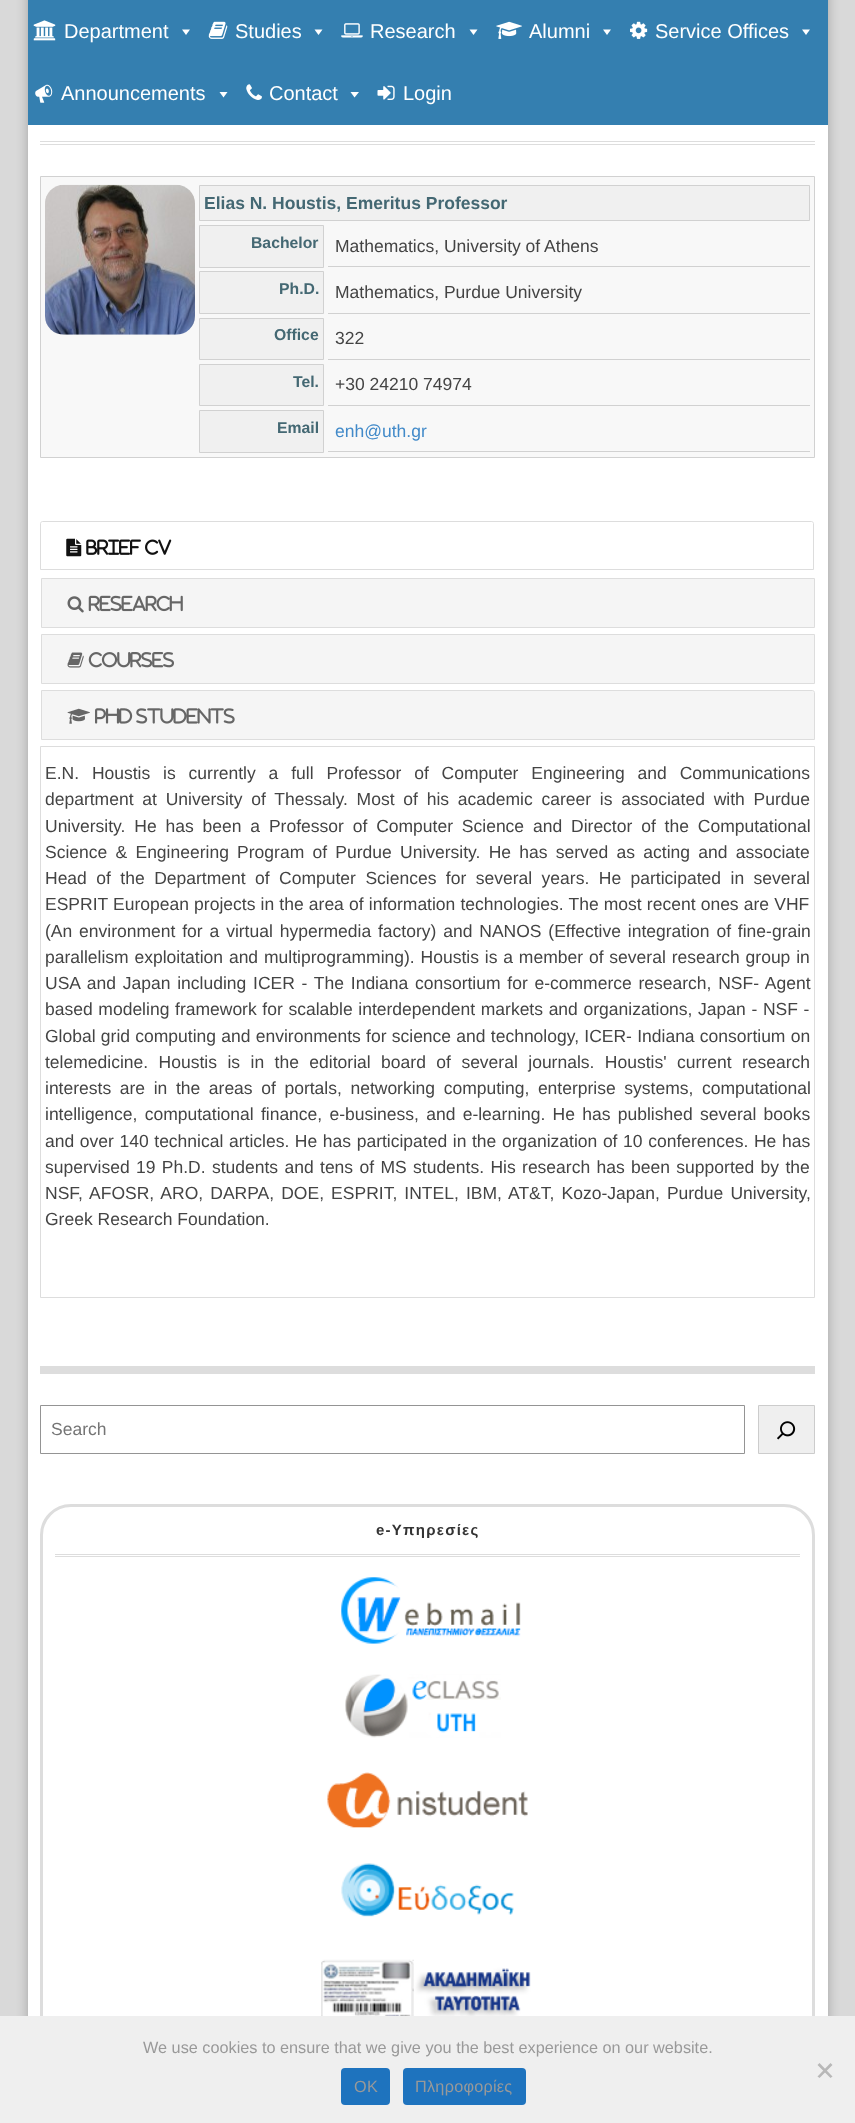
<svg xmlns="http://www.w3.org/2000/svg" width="855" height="2123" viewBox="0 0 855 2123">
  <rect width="100%" height="100%" fill="#d9d9d9"/>
  <path d="M28 -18h800v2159H28z" fill="#00000040" filter="blur(6px)"/>
  <path d="M28 0h800v125H28z" fill="#347fb0"/>
  <image x="33" y="20" width="23" height="21" href="img/1.png"/>
  <path d="M190 29.5L186 35L182 29.5Z" fill="#fff"/>
  <image x="208" y="21" width="20" height="18" href="img/2.png"/>
  <path d="M322.5 29.5L318.5 35L314.5 29.5Z" fill="#fff"/>
  <image x="341" y="23" width="22" height="15" href="img/3.png"/>
  <path d="M477.5 29.5L473.5 35L469.5 29.5Z" fill="#fff"/>
  <image x="496" y="21" width="26" height="18" href="img/4.png"/>
  <path d="M611 29.5L607 35L603 29.5Z" fill="#fff"/>
  <image x="630" y="21" width="18" height="18" href="img/5.png"/>
  <path d="M810 29.5L806 35L802 29.5Z" fill="#fff"/>
  <image x="35" y="84" width="18" height="19" href="img/6.png"/>
  <path d="M227.5 92L223.5 97.5L219.5 92Z" fill="#fff"/>
  <image x="246" y="84" width="16" height="16" href="img/7.png"/>
  <path d="M359 92L354.5 97.5L350.5 92Z" fill="#fff"/>
  <image x="377" y="85" width="18" height="15" href="img/8.png"/>
  <path d="M28 125h800v1891H28z" fill="#fff"/>
  <path d="M40 141h775v1H40z" fill="#ddd"/>
  <path d="M40 144h775v1H40z" fill="#ddd"/>
  <path d="M40.5 176.5h774v281H40.5z" fill="#f8f8f8" stroke="#d1d1d1"/>
  <image x="45" y="184" width="150" height="151" href="img/9.png"/>
  <path d="M199.5 185.5h610v35H199.5z" fill="#f0f0f0" stroke="#d1d1d1"/>
  <path d="M199.5 225.5h124v42H199.5z" fill="#f0f0f0" stroke="#d1d1d1"/>
  <path d="M328 266h482v1H328z" fill="#d1d1d1"/>
  <path d="M199.5 271.5h124v42H199.5z" fill="#f0f0f0" stroke="#d1d1d1"/>
  <path d="M328 313h482v1H328z" fill="#d1d1d1"/>
  <path d="M199.5 318.5h124v41H199.5z" fill="#f0f0f0" stroke="#d1d1d1"/>
  <path d="M328 359h482v1H328z" fill="#d1d1d1"/>
  <path d="M199.5 364.5h124v41H199.5z" fill="#f0f0f0" stroke="#d1d1d1"/>
  <path d="M328 405h482v1H328z" fill="#d1d1d1"/>
  <path d="M199.5 410.5h124v42H199.5z" fill="#f0f0f0" stroke="#d1d1d1"/>
  <path d="M328 451h482v1H328z" fill="#d1d1d1"/>
  <path d="M42.5 521.5H811.5C812.5 521.5 813.5 522.5 813.5 523.5V569.5H40.5V523.5C40.5 522.5 41.5 521.5 42.5 521.5Z" fill="none" stroke="#ddd"/>
  <image x="66" y="538" width="16" height="19" href="img/10.png"/>
  <image x="86" y="539" width="55" height="16" href="img/11.png"/>
  <image x="145" y="539" width="27" height="16" href="img/12.png"/>
  <path d="M41.5 578.5h773v49H41.5z" fill="#f5f5f5" stroke="#ddd"/>
  <image x="67" y="596" width="17" height="17" href="img/13.png"/>
  <image x="88" y="595" width="95" height="17" href="img/14.png"/>
  <path d="M41.5 634.5h773v49H41.5z" fill="#f5f5f5" stroke="#ddd"/>
  <image x="67" y="652" width="17" height="16" href="img/15.png"/>
  <image x="88" y="652" width="86" height="16" href="img/16.png"/>
  <path d="M41.5 690.5H812.5C813.5 690.5 814.5 691.5 814.5 692.5V739.5H41.5Z" fill="#f5f5f5" stroke="#ddd"/>
  <image x="67" y="708" width="23" height="16" href="img/17.png"/>
  <image x="95" y="708" width="38" height="16" href="img/18.png"/>
  <image x="136" y="708" width="99" height="16" href="img/19.png"/>
  <path d="M40.5 746.5h774v551H40.5z" fill="none" stroke="#ddd"/>
  <path d="M40 1366h775v8H40z" fill="#ddd"/>
  <path d="M40.5 1405.5h704v48H40.5z" fill="none" stroke="#949494"/>
  <path d="M758.5 1405.5h56v48H758.5z" fill="#efefef" stroke="#ccc"/>
  <image x="777" y="1421" width="19" height="19" href="img/20.png"/>
  <rect x="41.5" y="1505.5" width="772" height="553" rx="29.5" fill="none" stroke="#ddd" stroke-width="3"/>
  <path d="M55 1554h745v1H55z" fill="#ddd"/>
  <path d="M55 1556h745v1H55z" fill="#ddd"/>
  <image x="341" y="1577" width="180" height="67" href="img/21.png"/>
  <image x="345" y="1674" width="156" height="64" href="img/22.png"/>
  <image x="327" y="1772" width="201" height="56" href="img/23.png"/>
  <image x="341" y="1863" width="173" height="54" href="img/24.png"/>
  <image x="321" y="1959" width="210" height="57" href="img/25.png"/>
  <path d="M0 2016h855v107H0z" fill="#efefef"/>
  <path d="M830.5 2063L832.5 2065L819.5 2078L817.5 2076.5Z" fill="#b8b8b8"/>
  <path d="M817.5 2065L819.5 2063L832.5 2076.5L830.5 2078Z" fill="#b8b8b8"/>
  <rect x="341" y="2068" width="49" height="37" rx="4" fill="#1e73be"/>
  <rect x="403" y="2068" width="123" height="37" rx="4" fill="#1e73be"/>
  <g font-family="Liberation Sans" font-size="20" fill="#fff">
    <text x="64" y="38">Department</text>
    <text x="235" y="38">Studies</text>
    <text x="370" y="38">Research</text>
    <text x="529" y="38">Alumni</text>
    <text x="655" y="38">Service Offices</text>
    <text x="61" y="100">Announcements</text>
    <text x="269" y="100">Contact</text>
    <text x="403" y="100">Login</text>
  </g>
  <text x="204" y="209" font-family="Liberation Sans" font-size="17.5" font-weight="bold" fill="#446873">Elias N. Houstis, Emeritus Professor</text>
  <text x="251" y="248" font-family="Liberation Sans" font-size="15.75" font-weight="bold" fill="#446873">Bachelor</text>
  <text x="335" y="252" font-family="Liberation Sans" font-size="17.5" fill="#444">Mathematics, University of Athens</text>
  <text x="279" y="294" font-family="Liberation Sans" font-size="15.75" font-weight="bold" fill="#446873">Ph.D.</text>
  <text x="335" y="298" font-family="Liberation Sans" font-size="17.5" fill="#444">Mathematics, Purdue University</text>
  <text x="274" y="340" font-family="Liberation Sans" font-size="15.75" font-weight="bold" fill="#446873">Office</text>
  <text x="335" y="344" font-family="Liberation Sans" font-size="17.5" fill="#444">322</text>
  <text x="293" y="387" font-family="Liberation Sans" font-size="15.75" font-weight="bold" fill="#446873">Tel.</text>
  <text x="335" y="390" font-family="Liberation Sans" font-size="17.5" fill="#444">+30 24210 74974</text>
  <text x="277" y="433" font-family="Liberation Sans" font-size="15.75" font-weight="bold" fill="#446873">Email</text>
  <text x="335" y="437" font-family="Liberation Sans" font-size="17.5" fill="#428ac9">enh@uth.gr</text>
  <g font-family="Liberation Sans" font-size="17.5" fill="#444">
    <text x="45" y="779" word-spacing="8">E.N. Houstis is currently a full Professor of Computer Engineering and Communications</text>
    <text x="45" y="805" word-spacing="3.9">department at University of Thessaly. Most of his academic career is associated with Purdue</text>
    <text x="45" y="832" word-spacing="4">University. He has been a Professor of Computer Science and Director of the Computational</text>
    <text x="45" y="858" word-spacing="3.4">Science &amp; Engineering Program of Purdue University. He has served as acting and associate</text>
    <text x="45" y="884" word-spacing="4.6">Head of the Department of Computer Sciences for several years. He participated in several</text>
    <text x="45" y="910" word-spacing="0.3">ESPRIT European projects in the area of information technologies. The most recent ones are VHF</text>
    <text x="45" y="937" word-spacing="2">(An environment for a virtual hypermedia factory) and NANOS (Effective integration of fine-grain</text>
    <text x="45" y="963" word-spacing="1">parallelism exploitation and multiprogramming). Houstis is a member of several research group in</text>
    <text x="45" y="989" word-spacing="1.9">USA and Japan including ICER - The Indiana consortium for e-commerce research, NSF- Agent</text>
    <text x="45" y="1015" word-spacing="0.8">based modeling framework for scalable interdependent markets and organizations, Japan - NSF -</text>
    <text x="45" y="1042" word-spacing="0.4">Global grid computing and environments for science and technology, ICER- Indiana consortium on</text>
    <text x="45" y="1068" word-spacing="5.6">telemedicine. Houstis is in the editorial board of several journals. Houstis' current research</text>
    <text x="45" y="1094" word-spacing="3.75">interests are in the areas of portals, networking computing, enterprise systems, computational</text>
    <text x="45" y="1120" word-spacing="2.4">intelligence, computational finance, e-business, and e-learning. He has published several books</text>
    <text x="45" y="1147" word-spacing="0.75">and over 140 technical articles. He has participated in the organization of 10 conferences. He has</text>
    <text x="45" y="1173" word-spacing="1.5">supervised 19 Ph.D. students and tens of MS students. His research has been supported by the</text>
    <text x="45" y="1199" word-spacing="2.25">NSF, AFOSR, ARO, DARPA, DOE, ESPRIT, INTEL, IBM, AT&amp;T, Kozo-Japan, Purdue University,</text>
    <text x="45" y="1225">Greek Research Foundation.</text>
  </g>
  <text x="51" y="1435" font-family="Liberation Sans" font-size="17.5" fill="#757575">Search</text>
  <text x="376" y="1535" font-family="Liberation Sans" font-size="15" font-weight="bold" letter-spacing="1.25" fill="#333">e-Yπηρεσίες</text>
  <text x="143" y="2053" font-family="Liberation Sans" font-size="16.25" fill="#999">We use cookies to ensure that we give you the best experience on our website.</text>
  <g font-family="Liberation Sans" font-size="16.25" letter-spacing="0.25" fill="#999">
    <text x="354" y="2092">OK</text>
    <text x="415" y="2092">Πληροφορίες</text>
  </g>
</svg>
